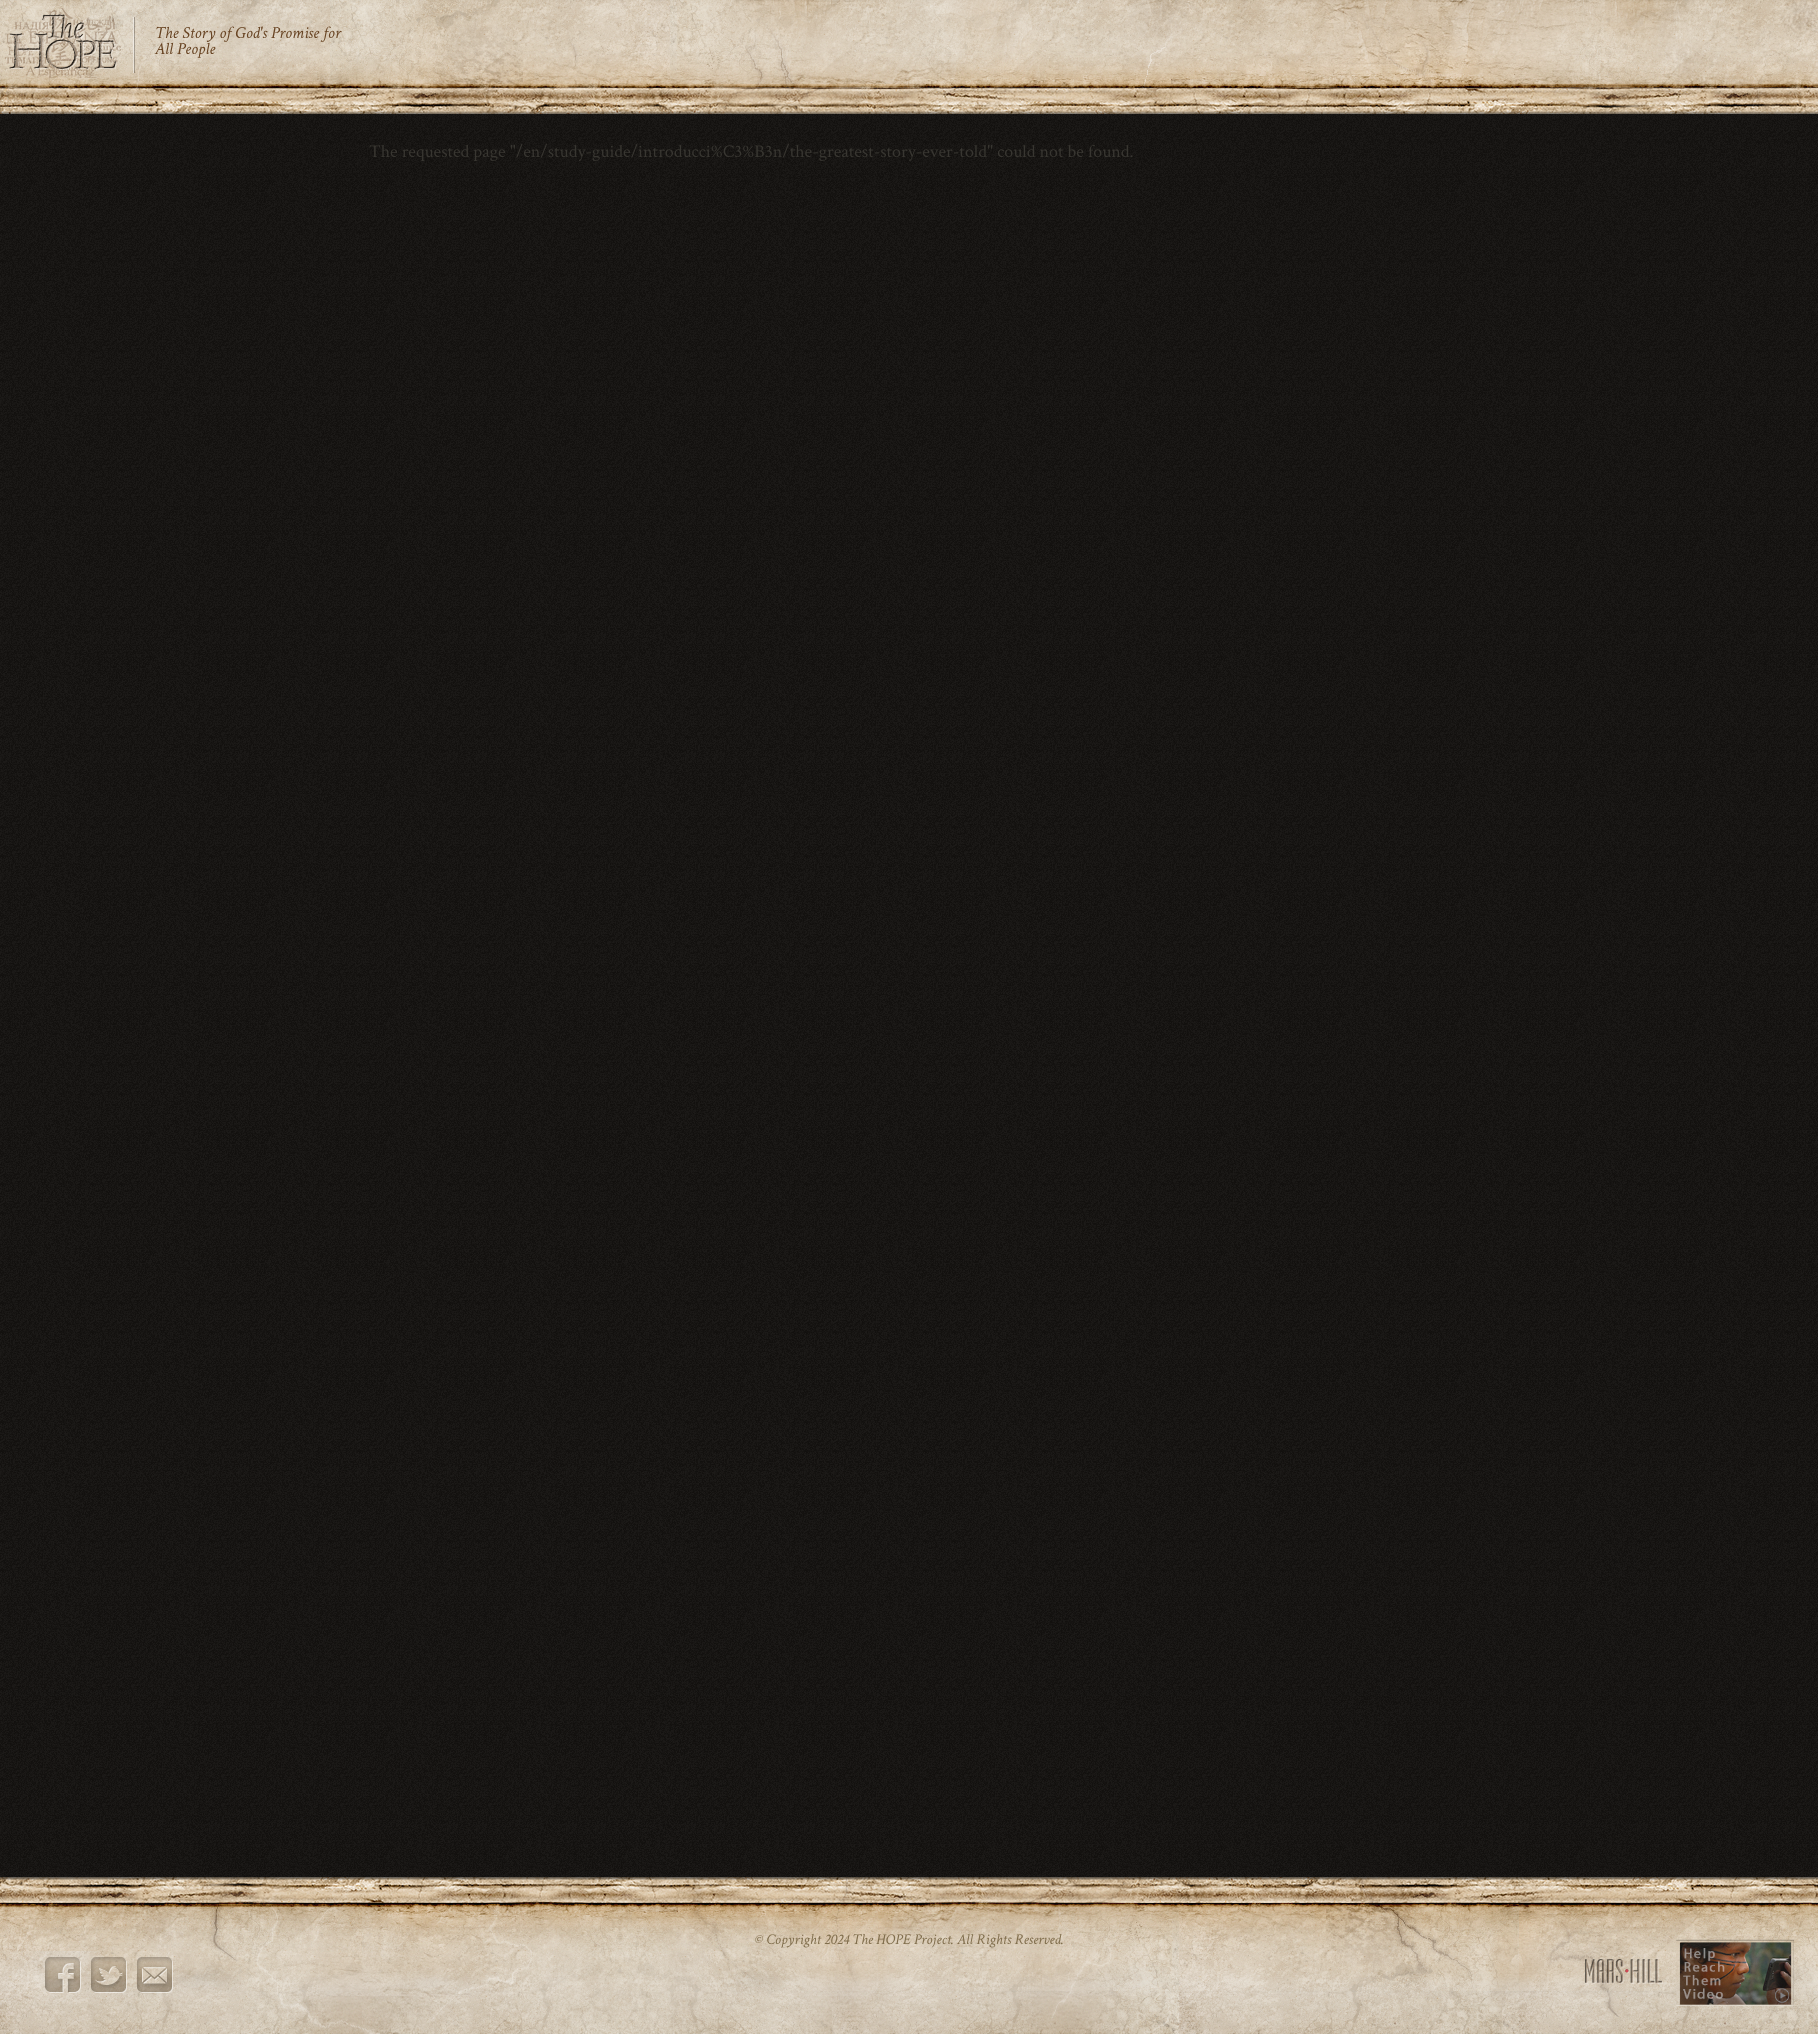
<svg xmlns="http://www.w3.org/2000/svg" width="1818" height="2034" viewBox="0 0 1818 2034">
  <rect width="100%" height="100%" fill="#fff"/>
  <image x="0" y="0" width="1818" height="2033" href="img/1.png"/>
  <image x="0" y="0" width="1818" height="114" href="img/2.png"/>
  <image x="5" y="8" width="130" height="71" href="img/3.png"/>
  <image x="0" y="1877" width="1818" height="157" href="img/4.png"/>
  <image x="45" y="1957" width="36" height="36" href="img/5.png"/>
  <image x="91" y="1957" width="36" height="36" href="img/6.png"/>
  <image x="137" y="1957" width="36" height="36" href="img/7.png"/>
  <image x="1585" y="1959" width="78" height="25" href="img/8.png"/>
  <image x="1676" y="1939" width="118" height="67" href="img/9.png"/>
  <g font-family="Crimson Text" font-size="17" font-style="italic" fill="#684423">
    <text x="155" y="38">The Story of God's Promise for</text>
    <text x="155" y="54">All People</text>
  </g>
  <text x="369" y="157" font-family="Crimson Text" font-size="18" fill="#383631">The requested page "/en/study-guide/introducci%C3%B3n/the-greatest-story-ever-told" could not be found.</text>
  <text x="755" y="1944" font-family="Crimson Text" font-size="15" font-style="italic" fill="#806e4d">© Copyright 2024 The HOPE Project. All Rights Reserved.</text>
</svg>
